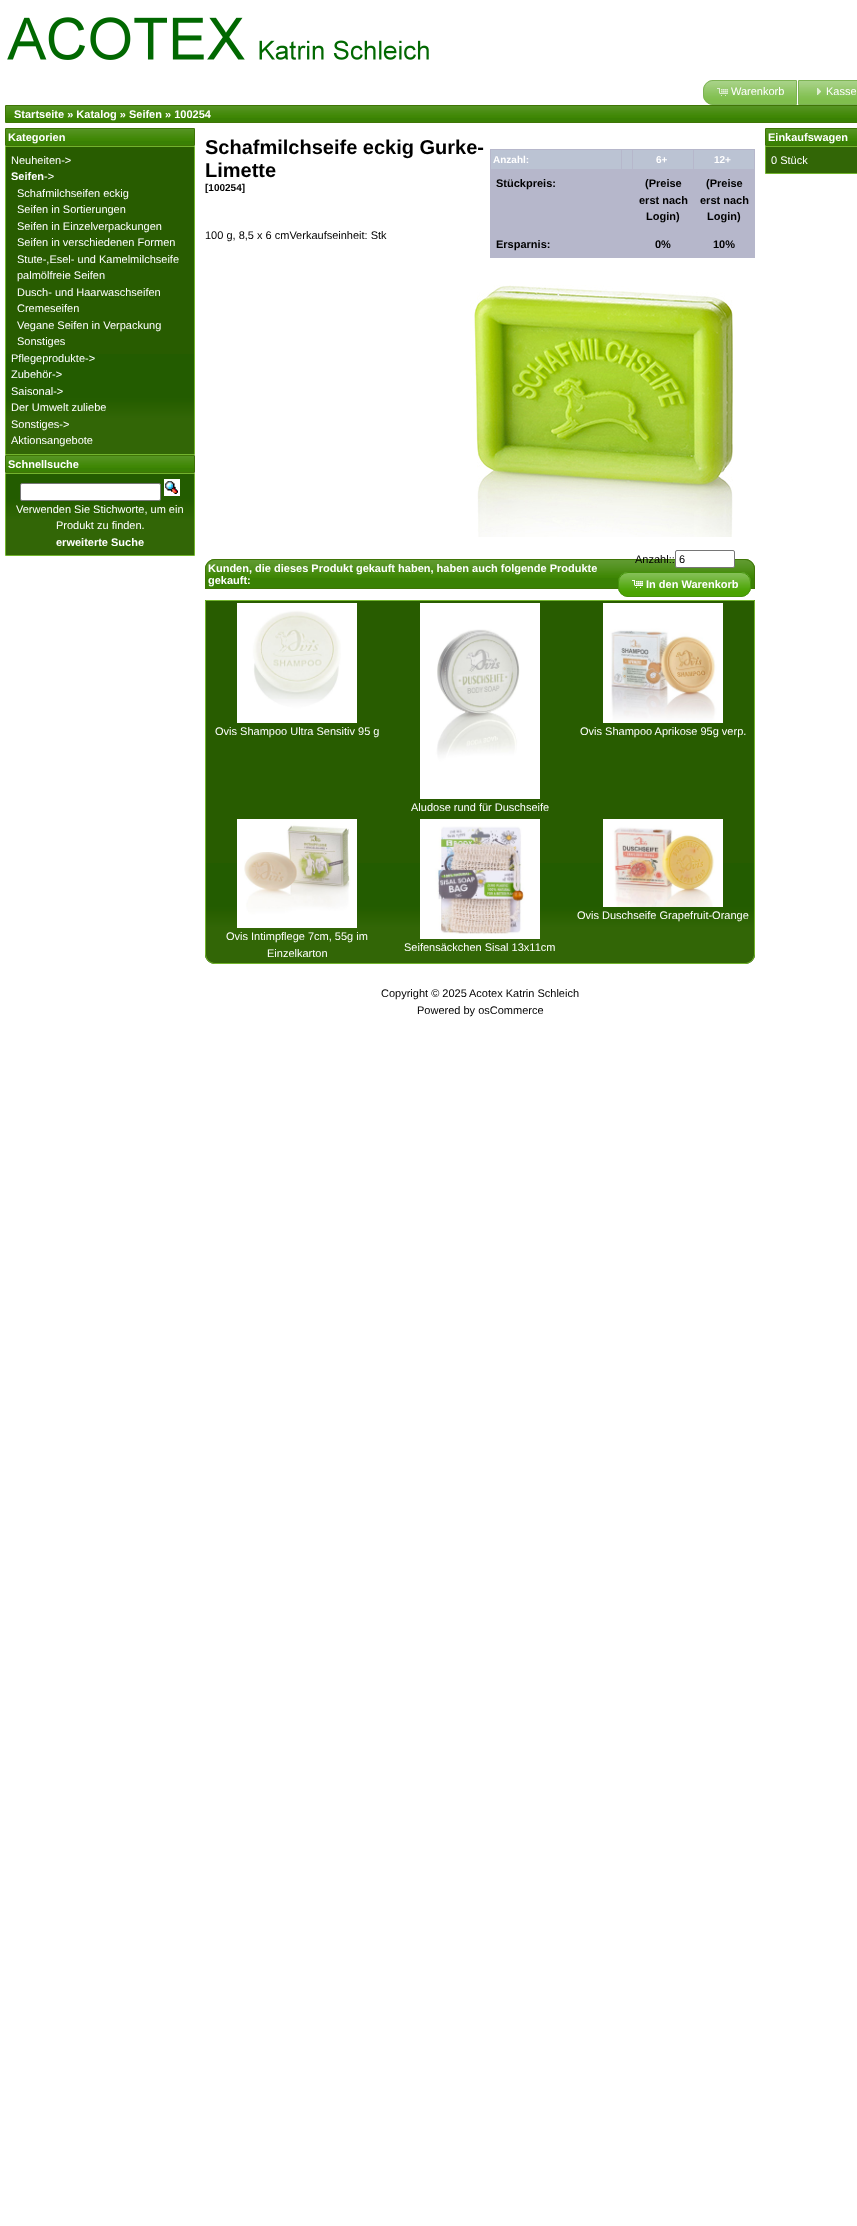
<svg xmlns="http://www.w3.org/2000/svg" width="857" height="2226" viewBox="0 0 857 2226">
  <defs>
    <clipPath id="clip1"><path d="M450 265H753V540H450ZM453 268H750V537H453Z" clip-rule="evenodd"/></clipPath>
  </defs>
  <rect width="100%" height="100%" fill="#fff"/>
  <image x="7" y="17" width="422" height="43" href="img/1.png"/>
  <image x="703" y="80" width="93" height="25" href="img/2.png"/>
  <path d="M713 80.5H796.5V104.5H713C708 104.5 703.5 100 703.5 95V90C703.5 85 708 80.5 713 80.5Z" fill="none" stroke="#7db354"/>
  <image x="717" y="88" width="11" height="8" href="img/3.png"/>
  <image x="799" y="81" width="58" height="23" href="img/4.png"/>
  <path d="M798.5 80.5h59v24H798.5z" fill="none" stroke="#7db354"/>
  <image x="817" y="88" width="4" height="7" href="img/5.png"/>
  <path d="M6 118h851v4H6z" fill="#3a8104"/>
  <image x="6" y="106" width="851" height="12" href="img/6.png"/>
  <path d="M5.5 105.5h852v17H5.5z" fill="none" stroke="#3f7506"/>
  <path d="M6 141h188v4H6z" fill="#3a8104"/>
  <image x="6" y="129" width="188" height="12" href="img/7.png"/>
  <path d="M5.5 128.5h189v17H5.5z" fill="none" stroke="#3f7506"/>
  <path d="M6 147h188v207H6z" fill="#285c00"/>
  <image x="6" y="354" width="188" height="100" href="img/8.png"/>
  <path d="M5.5 146.5h189v308H5.5z" fill="none" stroke="#72b42d"/>
  <path d="M6 468h188v4H6z" fill="#3a8104"/>
  <image x="6" y="456" width="188" height="12" href="img/7.png"/>
  <path d="M5.5 455.5h189v17H5.5z" fill="none" stroke="#3f7506"/>
  <image x="6" y="474" width="188" height="81" href="img/9.png"/>
  <path d="M5.5 473.5h189v82H5.5z" fill="none" stroke="#72b42d"/>
  <rect x="20.5" y="483.5" width="140" height="17" rx="1.5" fill="#fff" stroke="#767676"/>
  <image x="164" y="479" width="16" height="17" href="img/10.png"/>
  <path d="M490 149h265v109H490z" fill="#b6b7cb"/>
  <path d="M491 150h130v19H491z" fill="#bbc3d3"/>
  <path d="M622 150h10v19H622z" fill="#bbc3d3"/>
  <path d="M633 150h60v19H633z" fill="#bbc3d3"/>
  <path d="M694 150h60v19H694z" fill="#bbc3d3"/>
  <g clip-path="url(#clip1)">
    <path d="M453 268h297v269H453z" fill="#000" filter="blur(0.5px)"/>
  </g>
  <image x="470" y="285" width="263" height="252" href="img/11.png"/>
  <path d="M215 559H745C750.5 559 755 563.5 755 569V589H205V569C205 563.5 209.5 559 215 559Z" fill="#3a8104"/>
  <image x="205" y="559" width="550" height="19" href="img/14.png"/>
  <path d="M215 559.5H745C750 559.5 754.5 564 754.5 569V588.5H205.5V569C205.5 564 210 559.5 215 559.5Z" fill="none" stroke="#3f7506"/>
  <rect x="675.5" y="550.5" width="59" height="17" rx="1.5" fill="#fff" stroke="#767676"/>
  <image x="618" y="572" width="133" height="25" href="img/12.png"/>
  <rect x="618.5" y="572.5" width="132" height="24" rx="9.5" fill="none" stroke="#45930b"/>
  <image x="632" y="580" width="11" height="8" href="img/13.png"/>
  <path d="M205 600H755V954C755 959.5 750.5 964 745 964H215C209.5 964 205 959.5 205 954Z" fill="#285c00"/>
  <image x="205" y="863" width="550" height="100" href="img/15.png"/>
  <path d="M205.5 600.5H754.5V954C754.5 959 750 963.5 745 963.5H215C210 963.5 205.5 959 205.5 954Z" fill="none" stroke="#72b42d"/>
  <image x="237" y="603" width="120" height="120" href="img/16.png"/>
  <image x="603" y="603" width="120" height="120" href="img/17.png"/>
  <image x="420" y="603" width="120" height="196" href="img/18.png"/>
  <image x="603" y="819" width="120" height="88" href="img/19.png"/>
  <image x="237" y="819" width="120" height="109" href="img/20.png"/>
  <image x="420" y="819" width="120" height="120" href="img/21.png"/>
  <path d="M766 141h91v4H766z" fill="#3a8104"/>
  <image x="766" y="129" width="91" height="12" href="img/22.png"/>
  <path d="M765.5 128.5h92v17H765.5z" fill="none" stroke="#3f7506"/>
  <path d="M765.5 146.5h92v27H765.5z" fill="#326606" stroke="#72b42d"/>
  <g font-family="Liberation Sans" font-size="11" fill="#fff">
    <text x="731" y="95">Warenkorb</text>
    <text x="826" y="95">Kasse</text>
  </g>
  <g font-family="Liberation Sans" font-size="11" font-weight="bold" fill="#fff">
    <text x="14" y="118">Startseite » Katalog » Seifen » 100254</text>
    <text x="8" y="141">Kategorien</text>
  </g>
  <text x="11" y="164" font-family="Liberation Sans" font-size="11" fill="#fff">Neuheiten-&gt;</text>
  <text x="11" y="180" font-family="Liberation Sans" font-size="11" font-weight="bold" fill="#fff">Seifen</text>
  <g font-family="Liberation Sans" font-size="11" fill="#fff">
    <text x="44" y="180">-&gt;</text>
    <text x="17" y="197">Schafmilchseifen eckig</text>
    <text x="17" y="213">Seifen in Sortierungen</text>
    <text x="17" y="230">Seifen in Einzelverpackungen</text>
    <text x="17" y="246">Seifen in verschiedenen Formen</text>
    <text x="17" y="263">Stute-,Esel- und Kamelmilchseife</text>
    <text x="17" y="279">palmölfreie Seifen</text>
    <text x="17" y="296">Dusch- und Haarwaschseifen</text>
    <text x="17" y="312">Cremeseifen</text>
    <text x="17" y="329">Vegane Seifen in Verpackung</text>
    <text x="17" y="345">Sonstiges</text>
    <text x="11" y="362">Pflegeprodukte-&gt;</text>
    <text x="11" y="378">Zubehör-&gt;</text>
    <text x="11" y="395">Saisonal-&gt;</text>
    <text x="11" y="411">Der Umwelt zuliebe</text>
    <text x="11" y="428">Sonstiges-&gt;</text>
    <text x="11" y="444">Aktionsangebote</text>
  </g>
  <text x="8" y="468" font-family="Liberation Sans" font-size="11" font-weight="bold" fill="#fff">Schnellsuche</text>
  <g font-family="Liberation Sans" font-size="11" fill="#fff">
    <text x="16" y="513">Verwenden Sie Stichworte, um ein</text>
    <text x="56" y="529">Produkt zu finden.</text>
  </g>
  <text x="56" y="546" font-family="Liberation Sans" font-size="11" font-weight="bold" fill="#fff">erweiterte Suche</text>
  <g font-family="Liberation Sans" font-size="20" font-weight="bold" fill="#000">
    <text x="205" y="154">Schafmilchseife eckig Gurke-</text>
    <text x="205" y="177">Limette</text>
  </g>
  <text x="205" y="191" font-family="Liberation Sans" font-size="10" font-weight="bold" fill="#000">[100254]</text>
  <g font-family="Liberation Sans" font-size="10" font-weight="bold" fill="#fff">
    <text x="493" y="163">Anzahl:</text>
    <text x="656" y="163">6+</text>
    <text x="714" y="163">12+</text>
  </g>
  <g font-family="Liberation Sans" font-size="11" font-weight="bold" fill="#000">
    <text x="496" y="187">Stückpreis:</text>
    <text x="645" y="187">(Preise</text>
    <text x="639" y="204">erst nach</text>
    <text x="646" y="220">Login)</text>
    <text x="706" y="187">(Preise</text>
    <text x="700" y="204">erst nach</text>
    <text x="707" y="220">Login)</text>
    <text x="496" y="248">Ersparnis:</text>
    <text x="655" y="248">0%</text>
    <text x="713" y="248">10%</text>
  </g>
  <g font-family="Liberation Sans" font-size="11" fill="#000">
    <text x="205" y="239">100 g, 8,5 x 6 cmVerkaufseinheit: Stk</text>
    <text x="635" y="563">Anzahl::</text>
    <text x="679" y="563">6</text>
  </g>
  <g font-family="Liberation Sans" font-size="11" font-weight="bold" fill="#fff">
    <text x="646" y="588">In den Warenkorb</text>
    <text x="208" y="572">Kunden, die dieses Produkt gekauft haben, haben auch folgende Produkte</text>
    <text x="208" y="584">gekauft:</text>
  </g>
  <g font-family="Liberation Sans" font-size="11" fill="#fff">
    <text x="215" y="735">Ovis Shampoo Ultra Sensitiv 95 g</text>
    <text x="580" y="735">Ovis Shampoo Aprikose 95g verp.</text>
    <text x="411" y="811">Aludose rund für Duschseife</text>
    <text x="577" y="919">Ovis Duschseife Grapefruit-Orange</text>
    <text x="226" y="940">Ovis Intimpflege 7cm, 55g im</text>
    <text x="267" y="957">Einzelkarton</text>
    <text x="404" y="951">Seifensäckchen Sisal 13x11cm</text>
  </g>
  <text x="768" y="141" font-family="Liberation Sans" font-size="11" font-weight="bold" fill="#fff">Einkaufswagen</text>
  <text x="771" y="164" font-family="Liberation Sans" font-size="11" fill="#fff">0 Stück</text>
  <g font-family="Liberation Sans" font-size="11" fill="#000">
    <text x="381" y="997">Copyright © 2025</text>
    <text x="469" y="997">Acotex Katrin Schleich</text>
    <text x="417" y="1014">Powered by osCommerce</text>
  </g>
</svg>
